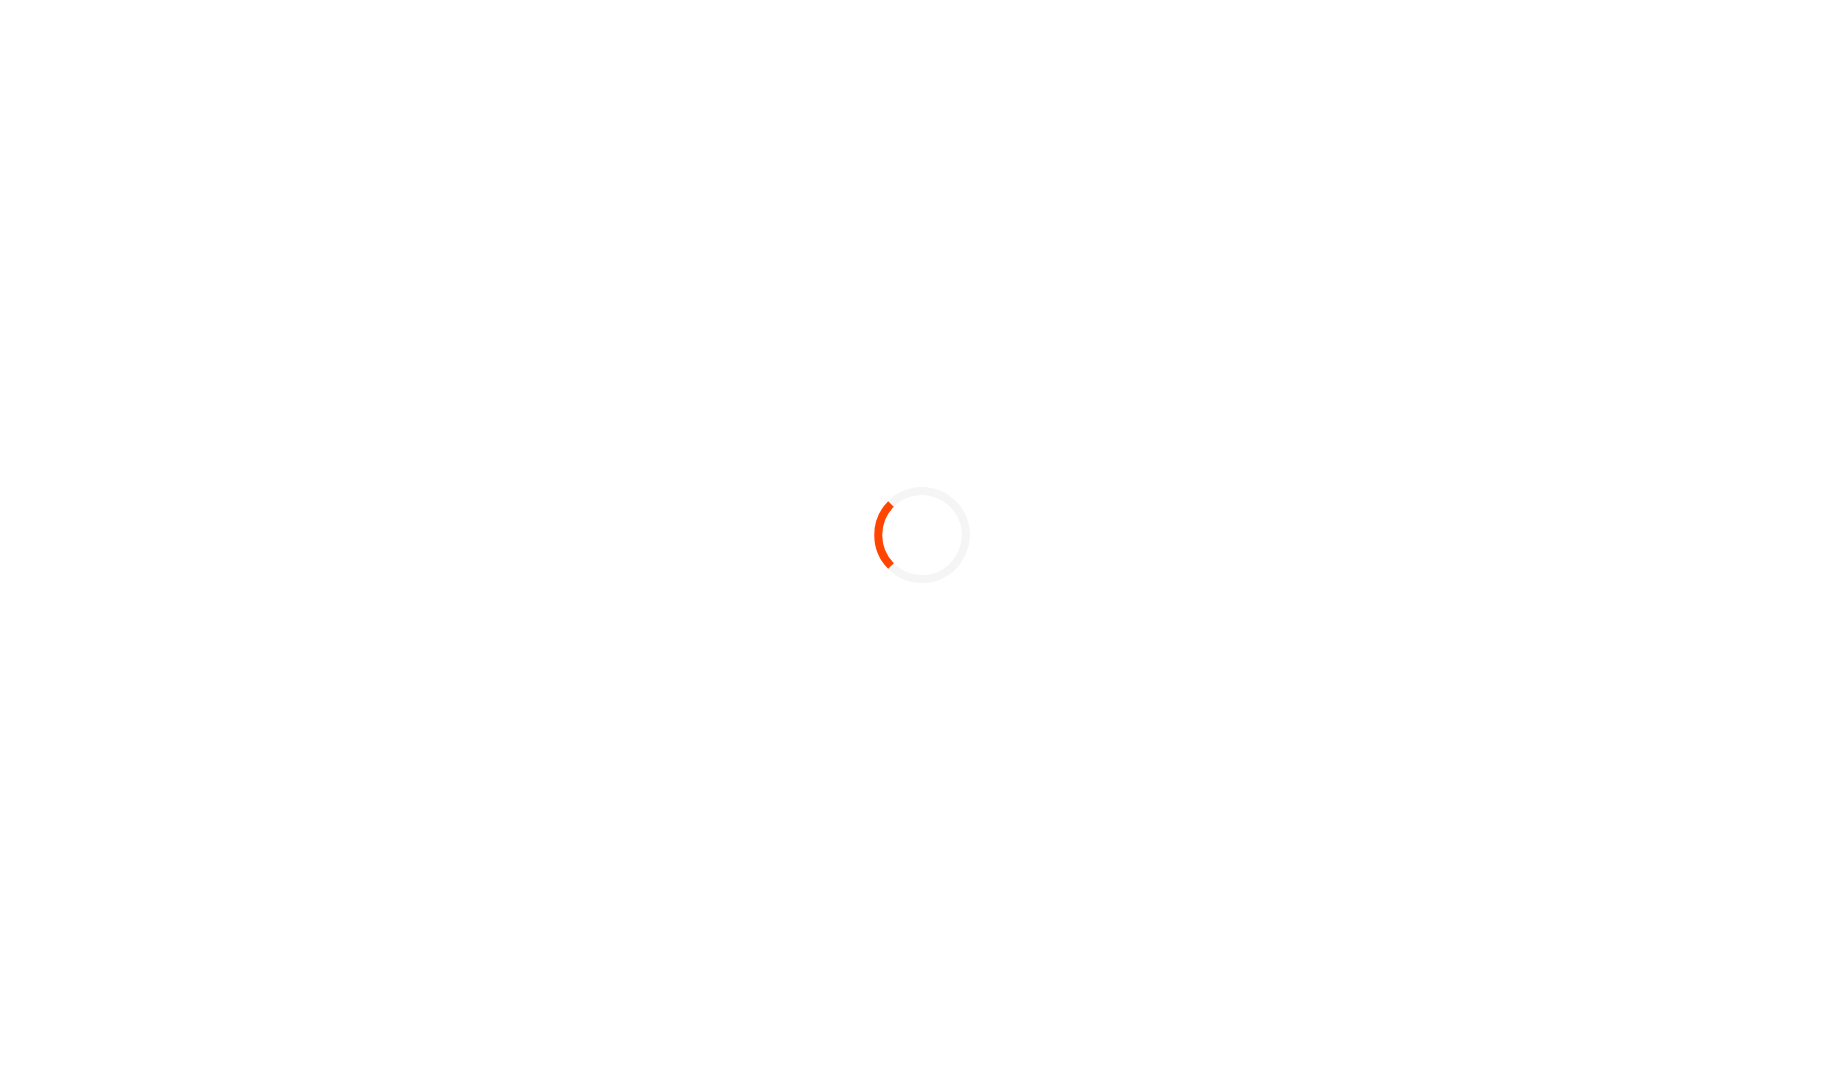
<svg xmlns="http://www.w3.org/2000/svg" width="1844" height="1069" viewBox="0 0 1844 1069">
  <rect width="100%" height="100%" fill="#fff"/>
  <path d="M891 504C901 493.5 916.5 489 930.5 492C939 493.5 947 498 953 504C980.5 531.5 961 579 922 579C910.5 579 899 574.5 891 566" fill="none" stroke="#f5f5f5" stroke-width="8"/>
  <path d="M891 566C874 549 874 521 891 504" fill="none" stroke="#ff4500" stroke-width="8"/>
</svg>
